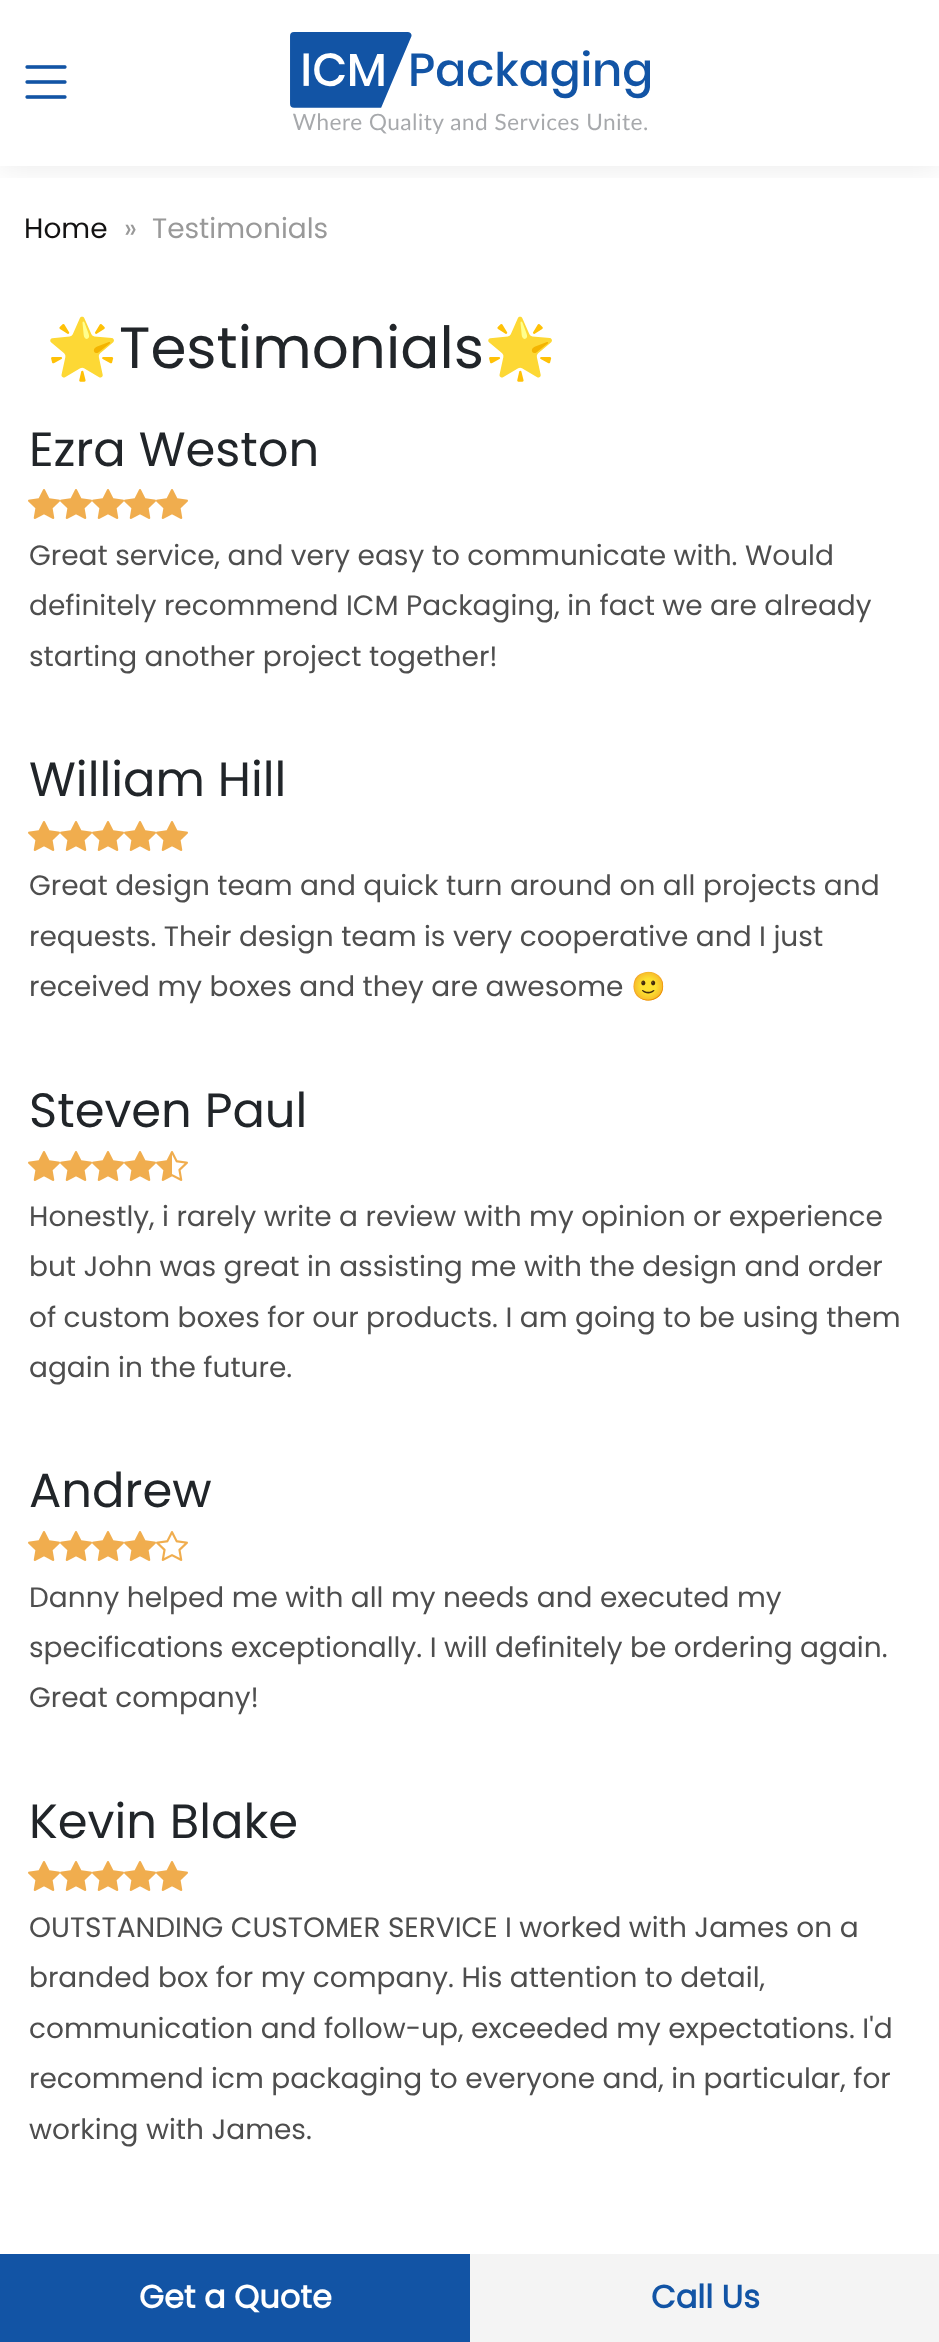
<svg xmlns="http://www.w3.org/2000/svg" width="939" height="2342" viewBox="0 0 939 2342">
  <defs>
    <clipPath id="clip1"><path d="M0 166h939v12H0z"/></clipPath>
  </defs>
  <rect width="100%" height="100%" fill="#fff"/>
  <g clip-path="url(#clip1)">
    <path d="M0 2h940v166H0z" fill="#00000014" filter="blur(15px)"/>
  </g>
  <image x="290" y="32" width="360" height="102" href="img/1.png"/>
  <image x="25" y="65" width="42" height="34" href="img/2.png"/>
  <image x="28" y="489" width="32" height="30" href="img/3.png"/>
  <image x="60" y="489" width="32" height="30" href="img/3.png"/>
  <image x="92" y="489" width="32" height="30" href="img/3.png"/>
  <image x="124" y="489" width="32" height="30" href="img/3.png"/>
  <image x="156" y="489" width="32" height="30" href="img/3.png"/>
  <image x="28" y="821" width="32" height="30" href="img/3.png"/>
  <image x="60" y="821" width="32" height="30" href="img/3.png"/>
  <image x="92" y="821" width="32" height="30" href="img/3.png"/>
  <image x="124" y="821" width="32" height="30" href="img/3.png"/>
  <image x="156" y="821" width="32" height="30" href="img/3.png"/>
  <image x="28" y="1151" width="32" height="30" href="img/3.png"/>
  <image x="60" y="1151" width="32" height="30" href="img/3.png"/>
  <image x="92" y="1151" width="32" height="30" href="img/3.png"/>
  <image x="124" y="1151" width="32" height="30" href="img/3.png"/>
  <image x="156" y="1151" width="32" height="30" href="img/4.png"/>
  <image x="28" y="1531" width="32" height="30" href="img/3.png"/>
  <image x="60" y="1531" width="32" height="30" href="img/3.png"/>
  <image x="92" y="1531" width="32" height="30" href="img/3.png"/>
  <image x="124" y="1531" width="32" height="30" href="img/3.png"/>
  <image x="156" y="1531" width="32" height="30" href="img/5.png"/>
  <image x="28" y="1861" width="32" height="30" href="img/3.png"/>
  <image x="60" y="1861" width="32" height="30" href="img/3.png"/>
  <image x="92" y="1861" width="32" height="30" href="img/3.png"/>
  <image x="124" y="1861" width="32" height="30" href="img/3.png"/>
  <image x="156" y="1861" width="32" height="30" href="img/3.png"/>
  <path d="M0 2254h470v88H0z" fill="#1254a5"/>
  <path d="M470 2254h469v88H470z" fill="#f4f4f4"/>
  <text x="24" y="238" font-family="Poppins" font-size="28" fill="#131212">Home</text>
  <g font-family="Poppins" font-size="28" fill="#999">
    <text x="124" y="238">»</text>
    <text x="152" y="238">Testimonials</text>
  </g>
  <text x="46" y="368" font-family="Noto Color Emoji" font-size="58" fill="#212529">🌟</text>
  <text x="119" y="368" font-family="Poppins" font-size="58" fill="#212529">Testimonials</text>
  <text x="484" y="368" font-family="Noto Color Emoji" font-size="58" fill="#212529">🌟</text>
  <text x="29" y="466" font-family="Poppins" font-size="48" fill="#212529">Ezra Weston</text>
  <g font-family="Poppins" font-size="28" fill="#4e4e4e">
    <text x="29" y="565">Great service, and very easy to communicate with. Would</text>
    <text x="29" y="615">definitely recommend ICM Packaging, in fact we are already</text>
    <text x="29" y="666">starting another project together!</text>
  </g>
  <text x="29" y="796" font-family="Poppins" font-size="48" fill="#212529">William Hill</text>
  <g font-family="Poppins" font-size="28" fill="#4e4e4e">
    <text x="29" y="895">Great design team and quick turn around on all projects and</text>
    <text x="29" y="946">requests. Their design team is very cooperative and I just</text>
    <text x="29" y="996">received my boxes and they are awesome</text>
  </g>
  <text x="631" y="996" font-family="Noto Color Emoji" font-size="28" fill="#4e4e4e">🙂</text>
  <text x="29" y="1127" font-family="Poppins" font-size="48" fill="#212529">Steven Paul</text>
  <g font-family="Poppins" font-size="28" fill="#4e4e4e">
    <text x="29" y="1226">Honestly, i rarely write a review with my opinion or experience</text>
    <text x="29" y="1276">but John was great in assisting me with the design and order</text>
    <text x="29" y="1327">of custom boxes for our products. I am going to be using them</text>
    <text x="29" y="1377">again in the future.</text>
  </g>
  <text x="29" y="1507" font-family="Poppins" font-size="48" fill="#212529">Andrew</text>
  <g font-family="Poppins" font-size="28" fill="#4e4e4e">
    <text x="29" y="1607">Danny helped me with all my needs and executed my</text>
    <text x="29" y="1657">specifications exceptionally. I will definitely be ordering again.</text>
    <text x="29" y="1707">Great company!</text>
  </g>
  <text x="29" y="1838" font-family="Poppins" font-size="48" fill="#212529">Kevin Blake</text>
  <g font-family="Poppins" font-size="28" fill="#4e4e4e">
    <text x="29" y="1937">OUTSTANDING CUSTOMER SERVICE I worked with James on a</text>
    <text x="29" y="1987">branded box for my company. His attention to detail,</text>
    <text x="29" y="2038">communication and follow-up, exceeded my expectations. I'd</text>
    <text x="29" y="2088">recommend icm packaging to everyone and, in particular, for</text>
    <text x="29" y="2139">working with James.</text>
  </g>
  <text x="139" y="2308" font-family="Poppins" font-size="32" font-weight="bold" fill="#fff">Get a Quote</text>
  <text x="651" y="2308" font-family="Poppins" font-size="32" font-weight="bold" fill="#1254a5">Call Us</text>
</svg>
